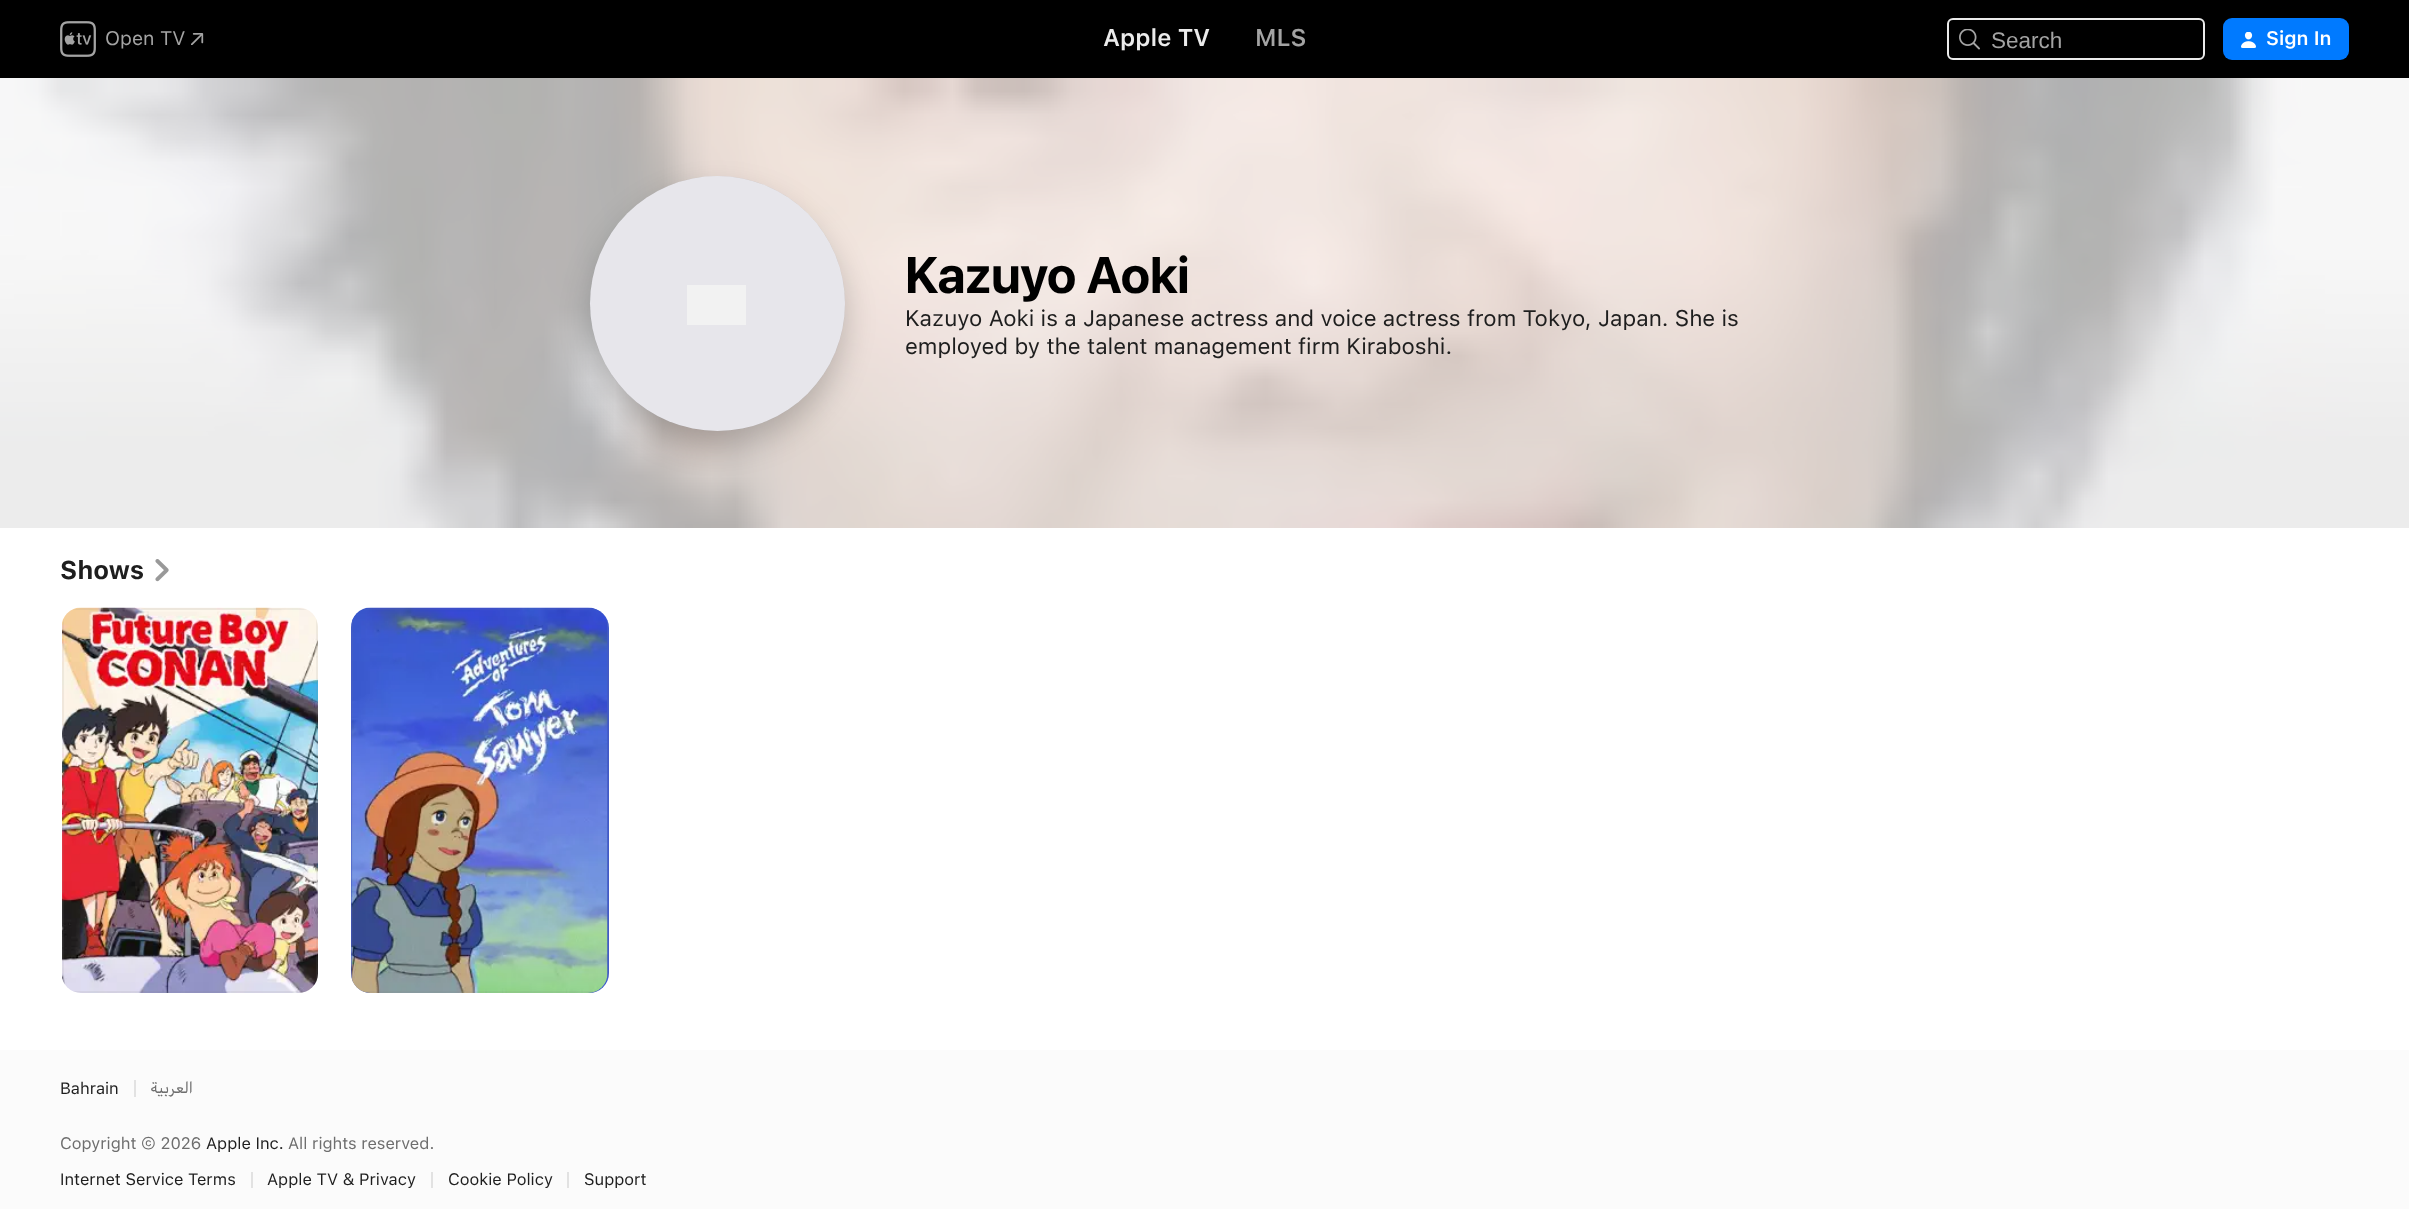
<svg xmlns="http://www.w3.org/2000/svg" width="2409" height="1209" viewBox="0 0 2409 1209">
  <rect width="100%" height="100%" fill="#fff"/>
  <path d="M0 0h2409v78H0z" fill="#000"/>
  <image x="60" y="21" width="36" height="36" href="img/1.png"/>
  <image x="191" y="33" width="13" height="12" href="img/2.png"/>
  <rect x="1948" y="19" width="256" height="40" rx="5" fill="none" stroke="#ebebeb" stroke-width="2"/>
  <image x="1959" y="29" width="21" height="21" href="img/3.png"/>
  <rect x="2223" y="18" width="126" height="42" rx="9" fill="#007aff"/>
  <image x="2241" y="32" width="15" height="16" href="img/4.png"/>
  <image x="0" y="78" width="2409" height="450" href="img/5.png"/>
  <rect x="590" y="191" width="255" height="255" rx="127.5" fill="#00000033" filter="blur(15px)"/>
  <circle cx="717.5" cy="303.5" r="126.5" fill="none" stroke="#00000014" stroke-width="2"/>
  <circle cx="717.5" cy="303.5" r="127.5" fill="#f3f2f8"/>
  <path d="M687 285h59v40H687z" fill="#fff"/>
  <path d="M718 176C788 176 845 233 845 304C845 374 788 431 718 431C647 431 590 374 590 304C590 233 647 176 718 176Z" fill="#8080801a"/>
  <image x="155" y="559" width="14" height="23" href="img/6.png"/>
  <image x="62" y="607" width="256" height="386" href="img/7.png"/>
  <path d="M62 628V973C62 976 63 979 64 982V619C63 622 62 625 62 628ZM82 608C79 608 76 609 73 610H307C304 609 301 608 298 608ZM318 628C318 625 317 622 316 619V982C317 979 318 976 318 973ZM298 993C301 993 304 992 307 991H73C76 992 79 993 82 993Z" fill="#8080801a" fill-rule="evenodd"/>
  <rect x="351" y="608" width="258" height="385" rx="20" fill="#3b57cf"/>
  <image x="351" y="607" width="257" height="386" href="img/8.png"/>
  <path d="M351 628V973C351 976 352 979 353 982V619C352 622 351 625 351 628ZM371 608C368 608 365 609 362 610H598C595 609 592 608 589 608ZM609 628C609 625 608 622 607 619V982C608 979 609 976 609 973ZM589 993C592 993 595 992 598 991H362C365 992 368 993 371 993Z" fill="#8080801a" fill-rule="evenodd"/>
  <path d="M0 1050h2409v159H0z" fill="#fbfbfb"/>
  <path d="M134 1080h2v17H134z" fill="#e2e2e2"/>
  <path d="M251 1172h2v16H251z" fill="#e2e2e2"/>
  <path d="M431 1172h2v16H431z" fill="#e2e2e2"/>
  <path d="M567 1172h2v16H567z" fill="#e2e2e2"/>
  <text x="105" y="45" font-family="SF" font-size="19.5" fill="#a3a3a3">Open TV</text>
  <text x="1103" y="46" font-family="SF" font-size="24" font-weight="600" fill="#ebebeb">Apple TV</text>
  <text x="1255" y="46" font-family="SF" font-size="24" font-weight="600" fill="#a3a3a3">MLS</text>
  <text x="1991" y="48" font-family="Liberation Sans" font-size="22.5" fill="#a3a3a3">Search</text>
  <text x="2266" y="45" font-family="SF" font-size="19.5" font-weight="600" fill="#fff">Sign In</text>
  <text x="905" y="293" font-family="'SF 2'" font-size="51" font-weight="bold" fill="#000">Kazuyo Aoki</text>
  <g font-family="SF" font-size="22.5" fill="#1e1e1e">
    <text x="905" y="326">Kazuyo Aoki is a Japanese actress and voice actress from Tokyo, Japan. She is</text>
    <text x="905" y="354">employed by the talent management firm Kiraboshi.</text>
  </g>
  <text x="60" y="579" font-family="SF" font-size="25.5" font-weight="bold" fill="#1e1e1e">Shows</text>
  <text x="60" y="1094" font-family="SF" font-size="16.5" fill="#1e1e1e">Bahrain</text>
  <text x="193" y="1094" font-family="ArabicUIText" font-size="16.5" direction="rtl" fill="#6e6e6e">العربية</text>
  <text x="60" y="1149" font-family="SF" font-size="16.5" fill="#6e6e6e">Copyright © 2026</text>
  <text x="206" y="1149" font-family="SF" font-size="16.5" fill="#1e1e1e">Apple Inc.</text>
  <text x="288" y="1149" font-family="SF" font-size="16.5" fill="#6e6e6e">All rights reserved.</text>
  <g font-family="SF" font-size="16.5" fill="#1e1e1e">
    <text x="60" y="1185">Internet Service Terms</text>
    <text x="267" y="1185">Apple TV &amp; Privacy</text>
    <text x="448" y="1185">Cookie Policy</text>
    <text x="584" y="1185">Support</text>
  </g>
</svg>
